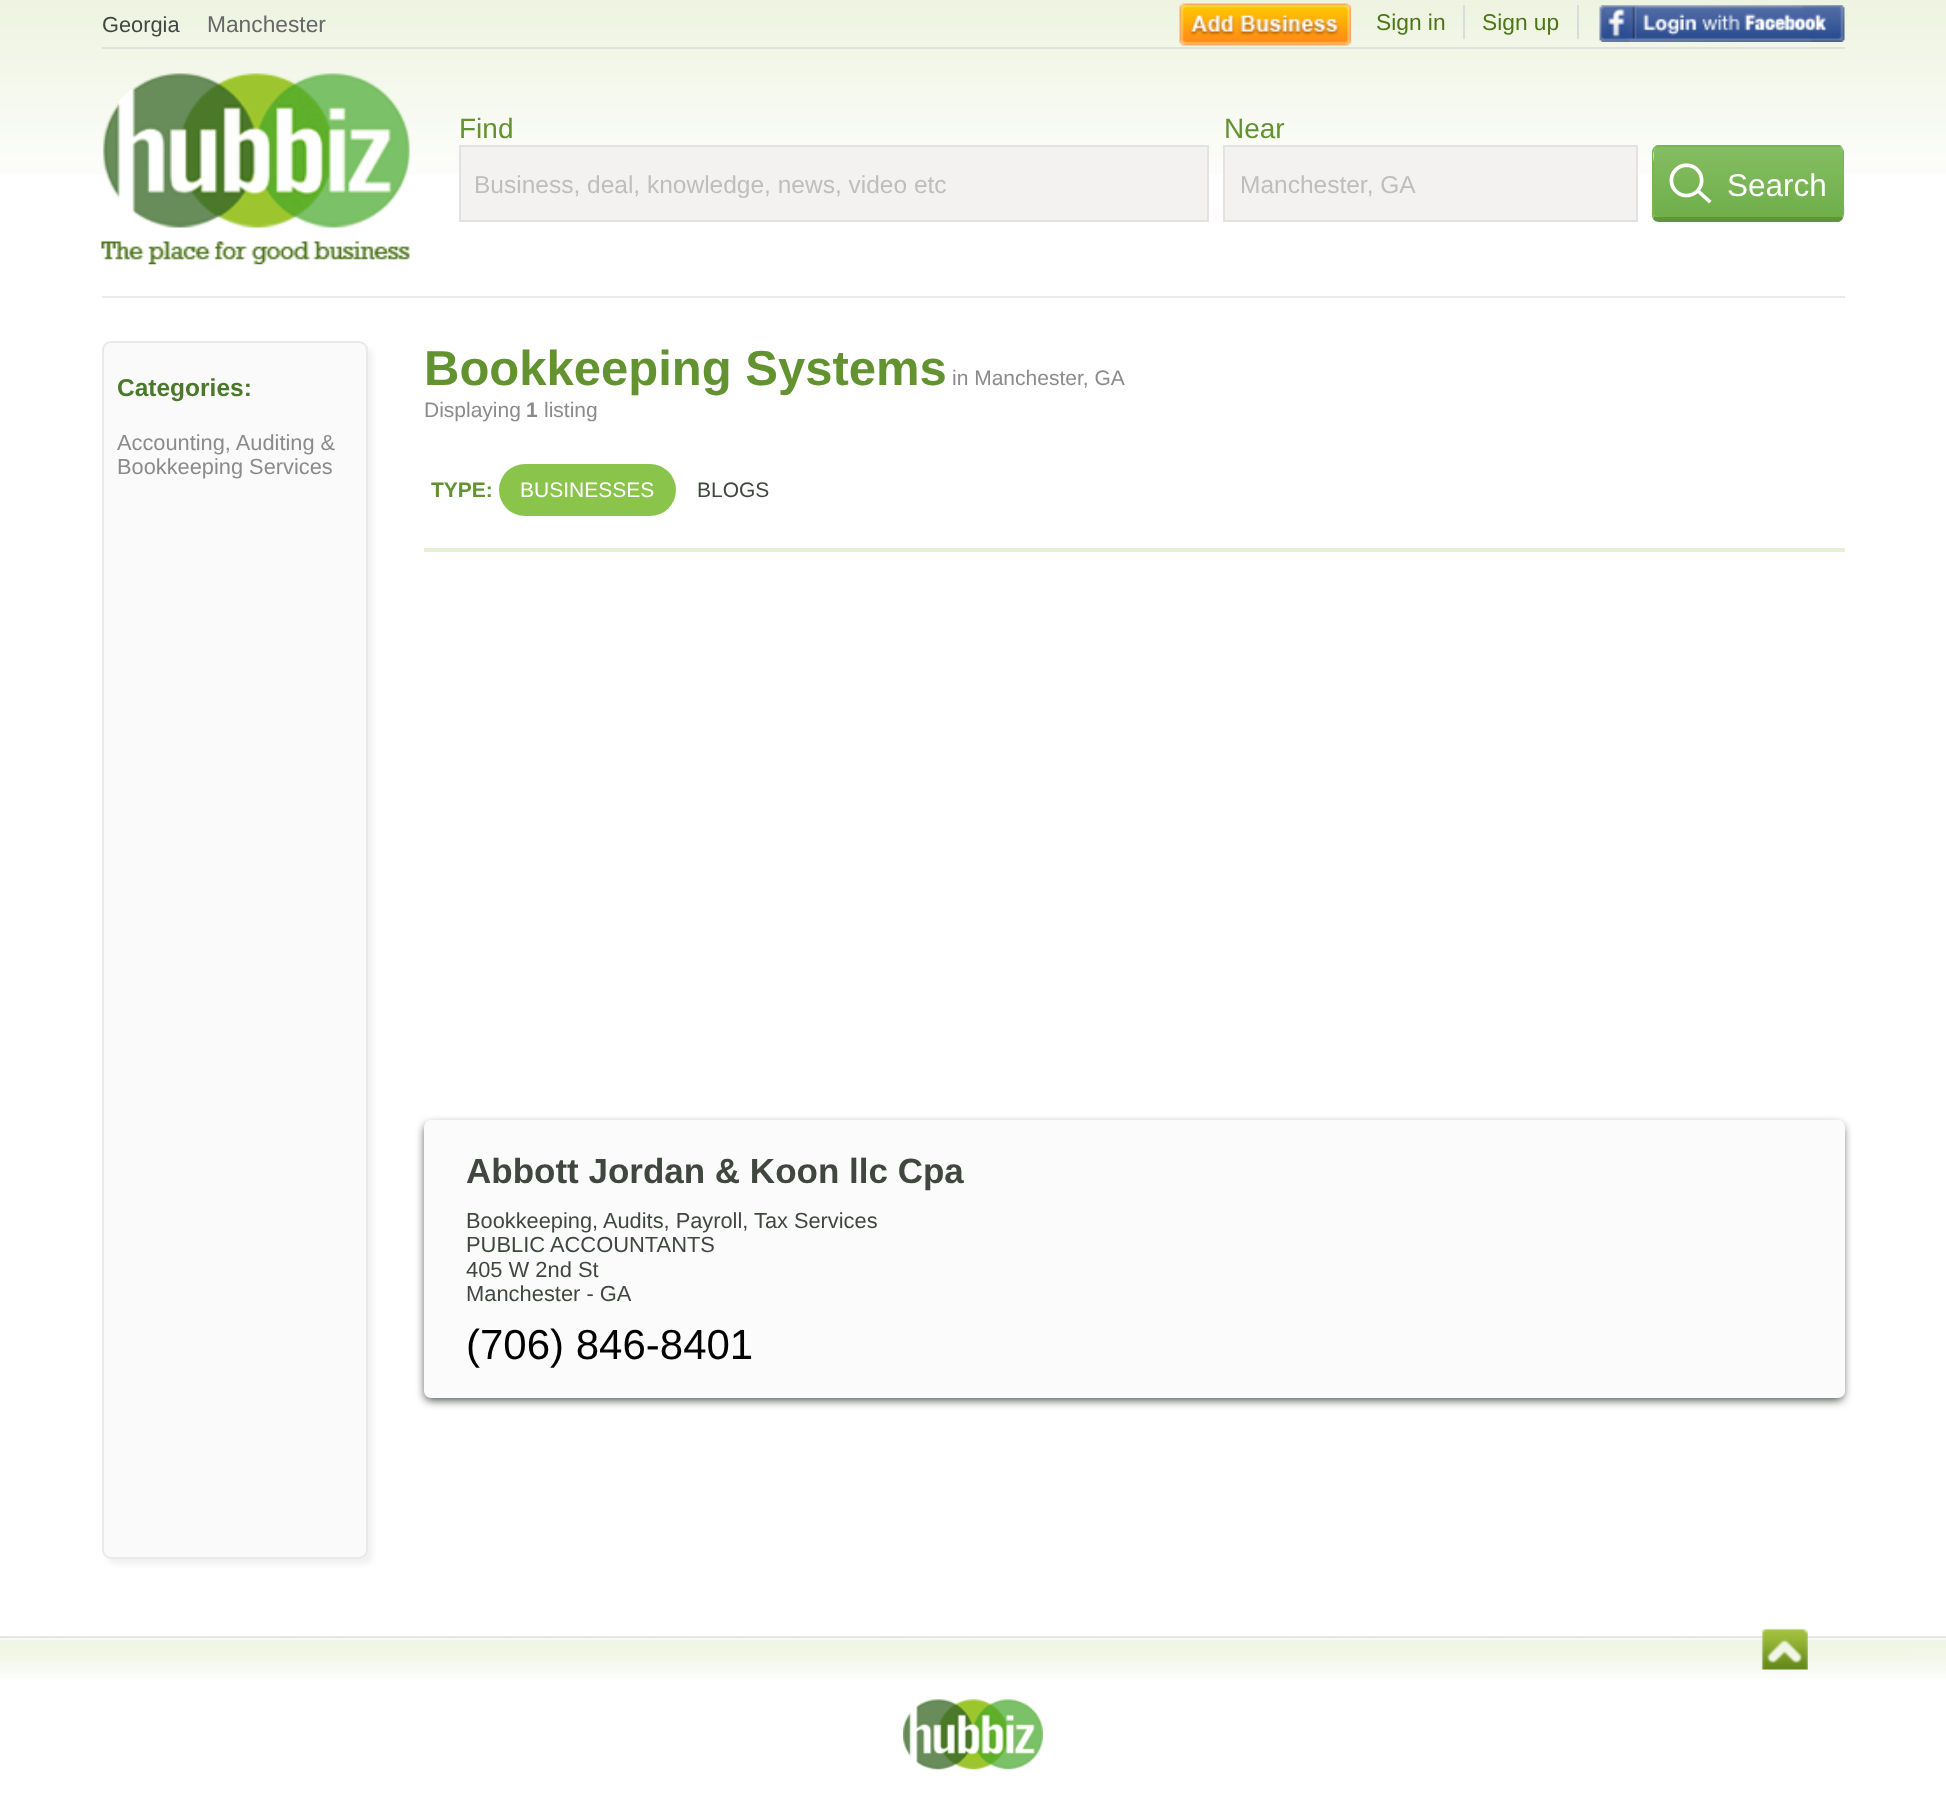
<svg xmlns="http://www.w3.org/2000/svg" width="1946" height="1819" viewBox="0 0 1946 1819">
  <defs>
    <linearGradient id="g1" gradientUnits="userSpaceOnUse" x1="1748" y1="77" x2="1748" y2="217"><stop offset="0" stop-color="#97db6e"/><stop offset="0.5" stop-color="#85bd63"/><stop offset="1" stop-color="#6fae49"/></linearGradient>
  </defs>
  <rect width="100%" height="100%" fill="#fff"/>
  <image x="0" y="0" width="1946" height="174" href="img/1.png"/>
  <path d="M102 296h1743v2H102z" fill="#e9eae9"/>
  <path d="M102 47h1743v2H102z" fill="#e0e1e0"/>
  <image x="1179" y="3" width="172" height="43" href="img/2.png"/>
  <path d="M1463 5h2v34H1463z" fill="#dbdbdb"/>
  <path d="M1577 5h2v34H1577z" fill="#dbdbdb"/>
  <image x="1599" y="5" width="246" height="37" href="img/3.png"/>
  <image x="101" y="73" width="309" height="192" href="img/4.png"/>
  <path d="M460 146h748v75H460z" fill="#f4f2f0" stroke="#e2e2e2" stroke-width="2"/>
  <path d="M1224 146h413v75H1224z" fill="#f4f2f0" stroke="#e2e2e2" stroke-width="2"/>
  <path d="M1659 147H1838C1840 147 1843 149 1843 152V215C1843 216 1840 217 1838 217H1659C1656 217 1654 216 1654 215V152C1654 149 1656 147 1659 147Z" fill="url(#g1)"/>
  <path d="M1659 147C1657 147 1656 148 1655 149L1654 147L1657 145H1840L1842 147L1841 148L1838 147Z" fill="#77b551"/>
  <path d="M1842 147L1844 151V204C1844 207 1845 215 1843 218L1842 216L1843 215V152C1843 151 1842 149 1841 148Z" fill="#77b551"/>
  <path d="M1843 218L1842 220L1839 222H1659C1657 222 1654 221 1653 219L1654 216C1655 216 1657 217 1659 217H1838C1839 217 1841 216 1842 216Z" fill="#5f953f"/>
  <path d="M1652 152V215C1652 216 1652 218 1653 219L1654 216V162C1654 161 1652 152 1655 149L1654 147C1653 148 1652 150 1652 152Z" fill="#77b551"/>
  <image x="1669" y="163" width="43" height="41" href="img/5.png"/>
  <rect x="107" y="347" width="266" height="1218" rx="9" fill="#0000000d" filter="blur(2.5px)"/>
  <rect x="103" y="342" width="264" height="1216" rx="8" fill="#fafafa" stroke="#e9e9e9" stroke-width="2"/>
  <path d="M424 548h1421v4H424z" fill="#e4f1d6"/>
  <rect x="499" y="464" width="177" height="52" rx="26" fill="#8ac44b"/>
  <rect x="425" y="1125" width="1418" height="275" rx="5" fill="#3f473f" filter="blur(5px)"/>
  <rect x="424" y="1120" width="1421" height="278" rx="7" fill="#fbfbfb"/>
  <image x="0" y="1636" width="1946" height="42" href="img/6.png"/>
  <image x="1761" y="1628" width="47" height="42" href="img/7.png"/>
  <image x="903" y="1699" width="140" height="71" href="img/8.png"/>
  <text x="102" y="32" font-family="Liberation Sans" font-size="21.8" fill="#3f473f">Georgia</text>
  <text x="207" y="32" font-family="Liberation Sans" font-size="22.75" fill="#676767">Manchester</text>
  <g font-family="Liberation Sans" font-size="22.75" fill="#4d7715">
    <text x="1376" y="30">Sign in</text>
    <text x="1482" y="30">Sign up</text>
  </g>
  <text x="459" y="138" font-family="Liberation Sans" font-size="28" fill="#639230">Find</text>
  <text x="474" y="193" font-family="Liberation Sans" font-size="24.5" fill="#bebebe">Business, deal, knowledge, news, video etc</text>
  <text x="1224" y="138" font-family="Liberation Sans" font-size="28" fill="#639230">Near</text>
  <text x="1240" y="193" font-family="Liberation Sans" font-size="24.5" fill="#bebebe">Manchester, GA</text>
  <text x="1727" y="196" font-family="Liberation Sans" font-size="31.5" fill="#fff">Search</text>
  <text x="117" y="396" font-family="Liberation Sans" font-size="24.5" font-weight="bold" fill="#4b7929">Categories:</text>
  <g font-family="Liberation Sans" font-size="21.8" fill="#8b8b8b">
    <text x="117" y="450">Accounting, Auditing &amp;</text>
    <text x="117" y="474">Bookkeeping Services</text>
  </g>
  <text x="424" y="385" font-family="Liberation Sans" font-size="49" font-weight="bold" fill="#639230">Bookkeeping Systems</text>
  <g font-family="Liberation Sans" font-size="21" fill="#8b8b8b">
    <text x="952" y="385">in Manchester, GA</text>
    <text x="424" y="417">Displaying</text>
  </g>
  <text x="526" y="417" font-family="Liberation Sans" font-size="21" font-weight="bold" fill="#8b8b8b">1</text>
  <text x="544" y="417" font-family="Liberation Sans" font-size="21" fill="#8b8b8b">listing</text>
  <text x="431" y="497" font-family="Liberation Sans" font-size="21" font-weight="bold" fill="#639230">TYPE:</text>
  <text x="520" y="497" font-family="Liberation Sans" font-size="21" fill="#fff">BUSINESSES</text>
  <text x="697" y="497" font-family="Liberation Sans" font-size="21" fill="#3f473f">BLOGS</text>
  <text x="466" y="1183" font-family="Liberation Sans" font-size="35" font-weight="bold" fill="#3f473f">Abbott Jordan &amp; Koon llc Cpa</text>
  <text x="466" y="1228" font-family="Liberation Sans" font-size="21.8" fill="#3f473f">Bookkeeping, Audits, Payroll, Tax Services</text>
  <g font-family="Liberation Sans" font-size="21.9" fill="#3f473f">
    <text x="466" y="1252">PUBLIC ACCOUNTANTS</text>
    <text x="466" y="1277">405 W 2nd St</text>
    <text x="466" y="1301">Manchester - GA</text>
  </g>
  <text x="466" y="1359" font-family="Liberation Sans" font-size="42" fill="#000">(706) 846-8401</text>
</svg>
